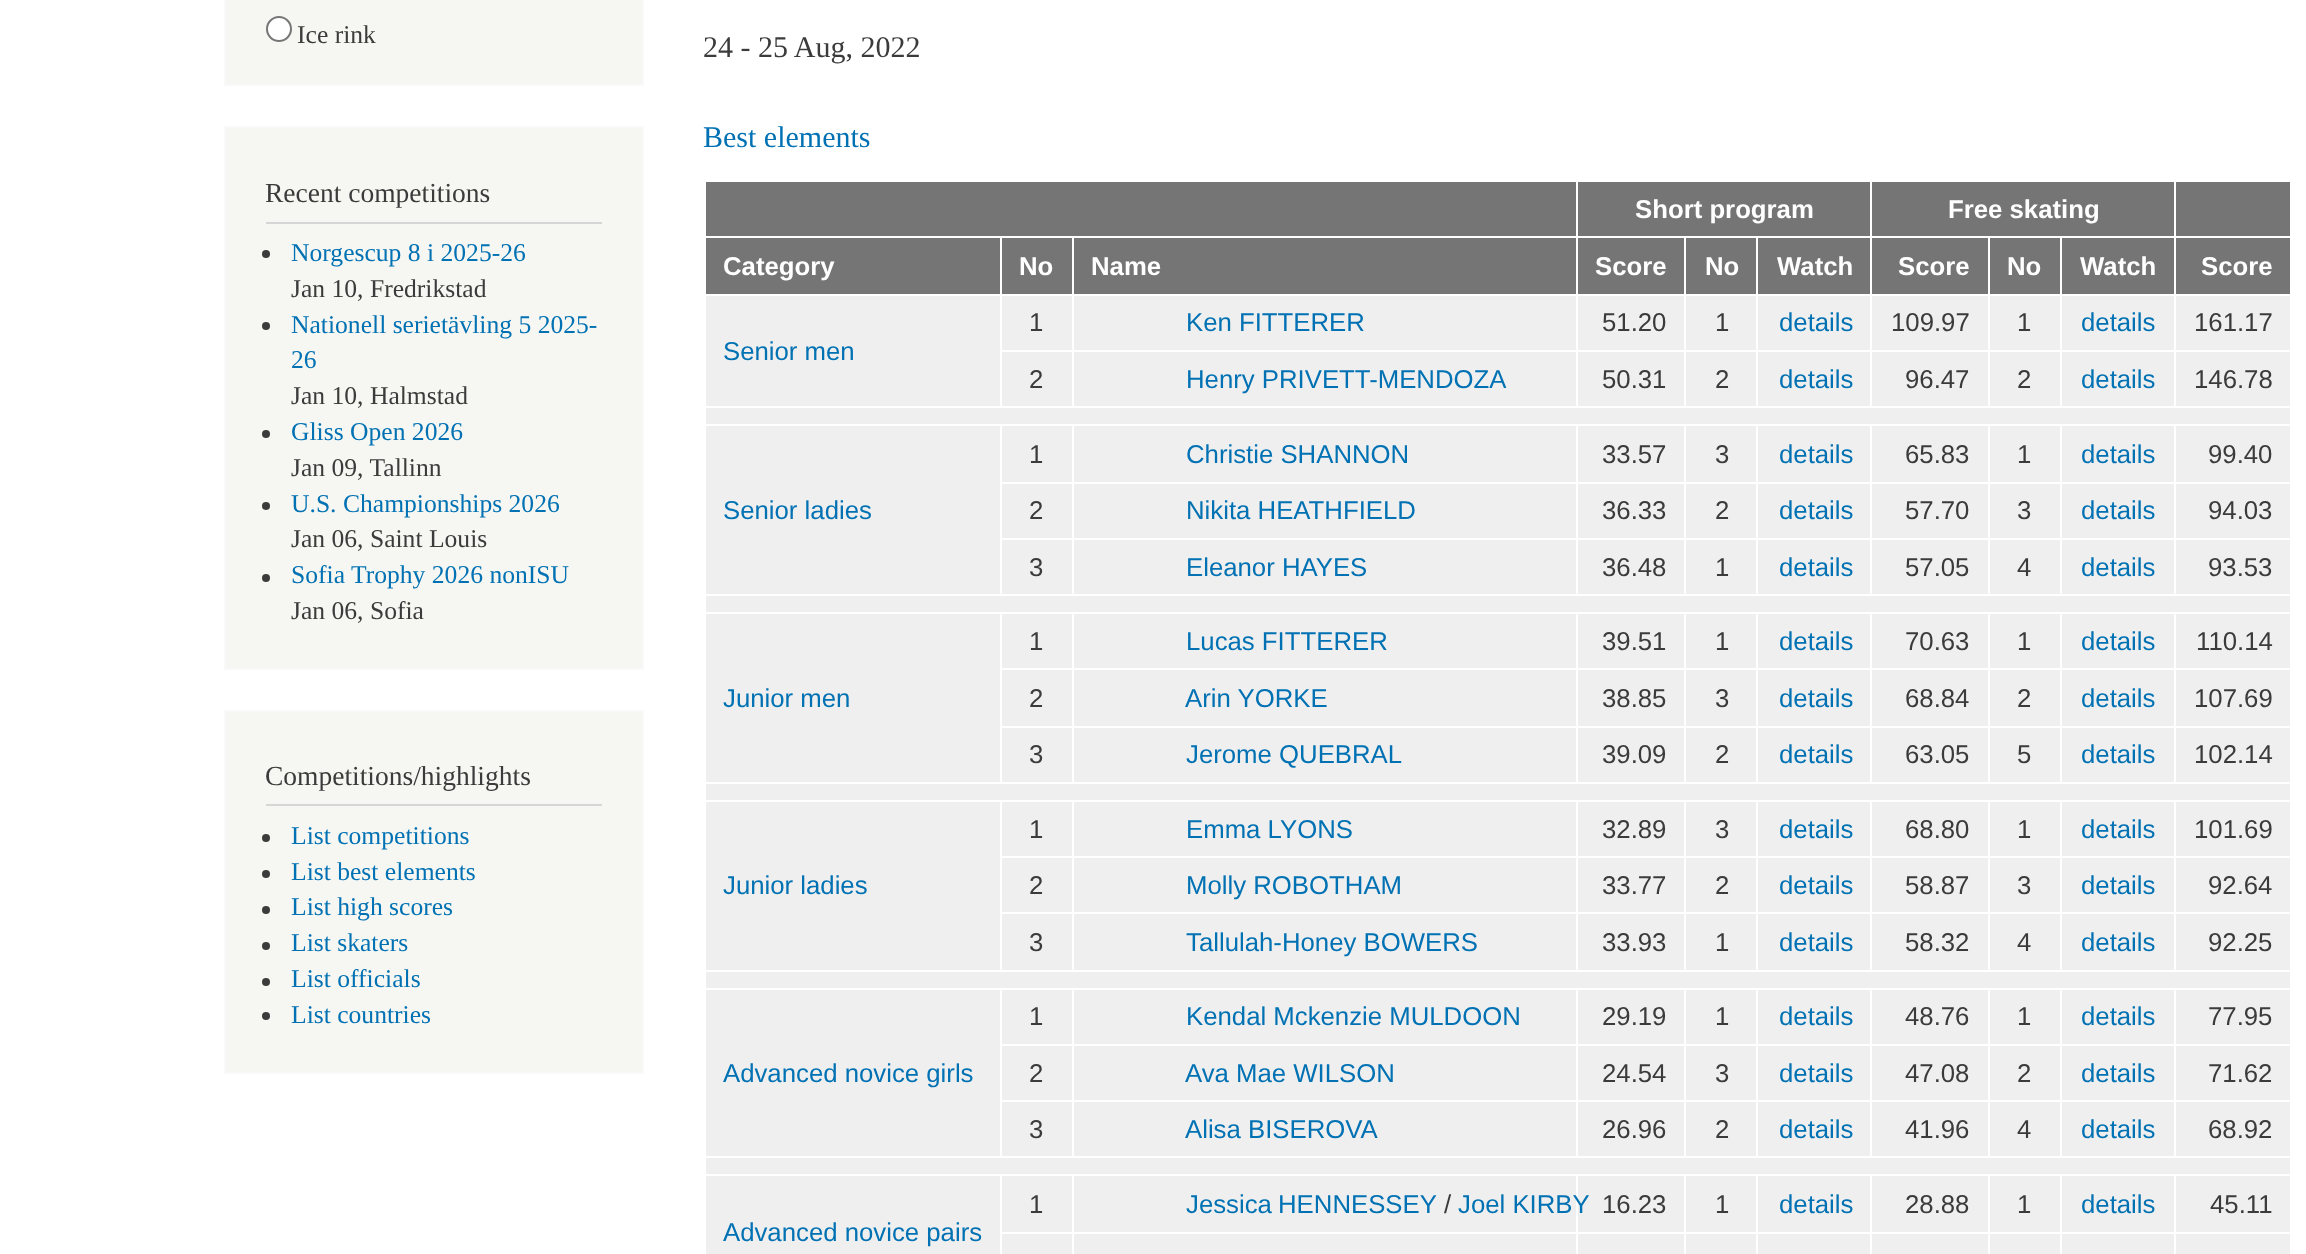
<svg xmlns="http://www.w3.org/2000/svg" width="2306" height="1254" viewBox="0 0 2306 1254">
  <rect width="100%" height="100%" fill="#fff"/>
  <path d="M225 -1h418v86H225z" fill="#f6f6f2" stroke="#f9f9f9" stroke-width="2"/>
  <circle cx="279" cy="29" r="12" fill="#fff" stroke="#767676" stroke-width="2"/>
  <path d="M225 127h418v542H225z" fill="#f6f6f2" stroke="#f9f9f9" stroke-width="2"/>
  <path d="M266 222h336v2H266z" fill="#d6d6d6"/>
  <circle cx="266" cy="254" r="4" fill="#3b3b3b"/>
  <circle cx="266" cy="326" r="4" fill="#3b3b3b"/>
  <circle cx="266" cy="434" r="4" fill="#3b3b3b"/>
  <circle cx="266" cy="506" r="4" fill="#3b3b3b"/>
  <circle cx="266" cy="578" r="4" fill="#3b3b3b"/>
  <path d="M225 711h418v362H225z" fill="#f6f6f2" stroke="#f9f9f9" stroke-width="2"/>
  <path d="M266 804h336v2H266z" fill="#d6d6d6"/>
  <circle cx="266" cy="838" r="4" fill="#3b3b3b"/>
  <circle cx="266" cy="874" r="4" fill="#3b3b3b"/>
  <circle cx="266" cy="910" r="4" fill="#3b3b3b"/>
  <circle cx="266" cy="946" r="4" fill="#3b3b3b"/>
  <circle cx="266" cy="982" r="4" fill="#3b3b3b"/>
  <circle cx="266" cy="1016" r="4" fill="#3b3b3b"/>
  <path d="M706 182h870v54H706z" fill="#757575"/>
  <path d="M1578 182h292v54H1578z" fill="#757575"/>
  <path d="M1872 182h302v54H1872z" fill="#757575"/>
  <path d="M2176 182h114v54H2176z" fill="#757575"/>
  <path d="M706 238h294v56H706z" fill="#757575"/>
  <path d="M1002 238h70v56H1002z" fill="#757575"/>
  <path d="M1074 238h502v56H1074z" fill="#757575"/>
  <path d="M1578 238h106v56H1578z" fill="#757575"/>
  <path d="M1686 238h70v56H1686z" fill="#757575"/>
  <path d="M1758 238h112v56H1758z" fill="#757575"/>
  <path d="M1872 238h116v56H1872z" fill="#757575"/>
  <path d="M1990 238h70v56H1990z" fill="#757575"/>
  <path d="M2062 238h112v56H2062z" fill="#757575"/>
  <path d="M2176 238h114v56H2176z" fill="#757575"/>
  <path d="M706 296h1584v110H706z" fill="#efefef"/>
  <path d="M2174 350h118v2H2174z" fill="#fff"/>
  <path d="M2174 350h2v58H2174z" fill="#fff"/>
  <path d="M2060 350h116v2H2060z" fill="#fff"/>
  <path d="M2060 350h2v58H2060z" fill="#fff"/>
  <path d="M1988 350h74v2H1988z" fill="#fff"/>
  <path d="M1988 350h2v58H1988z" fill="#fff"/>
  <path d="M1870 350h120v2H1870z" fill="#fff"/>
  <path d="M1870 350h2v58H1870z" fill="#fff"/>
  <path d="M1756 350h116v2H1756z" fill="#fff"/>
  <path d="M1756 350h2v58H1756z" fill="#fff"/>
  <path d="M1684 350h74v2H1684z" fill="#fff"/>
  <path d="M1684 350h2v58H1684z" fill="#fff"/>
  <path d="M1576 350h110v2H1576z" fill="#fff"/>
  <path d="M1576 350h2v58H1576z" fill="#fff"/>
  <path d="M1072 350h506v2H1072z" fill="#fff"/>
  <path d="M1072 350h2v58H1072z" fill="#fff"/>
  <path d="M1000 350h74v2H1000z" fill="#fff"/>
  <path d="M1072 294h2v58H1072z" fill="#fff"/>
  <path d="M1576 294h2v58H1576z" fill="#fff"/>
  <path d="M1684 294h2v58H1684z" fill="#fff"/>
  <path d="M1756 294h2v58H1756z" fill="#fff"/>
  <path d="M1870 294h2v58H1870z" fill="#fff"/>
  <path d="M1988 294h2v58H1988z" fill="#fff"/>
  <path d="M2060 294h2v58H2060z" fill="#fff"/>
  <path d="M2174 294h2v58H2174z" fill="#fff"/>
  <path d="M1000 294h2v114H1000z" fill="#fff"/>
  <path d="M706 408h1584v16H706z" fill="#efefef"/>
  <path d="M706 426h1584v168H706z" fill="#efefef"/>
  <path d="M2174 482h118v2H2174z" fill="#fff"/>
  <path d="M2174 538h118v2H2174z" fill="#fff"/>
  <path d="M2174 538h2v58H2174z" fill="#fff"/>
  <path d="M2060 538h116v2H2060z" fill="#fff"/>
  <path d="M2174 482h2v58H2174z" fill="#fff"/>
  <path d="M2060 482h116v2H2060z" fill="#fff"/>
  <path d="M2060 538h2v58H2060z" fill="#fff"/>
  <path d="M1988 538h74v2H1988z" fill="#fff"/>
  <path d="M2060 482h2v58H2060z" fill="#fff"/>
  <path d="M1988 482h74v2H1988z" fill="#fff"/>
  <path d="M1988 538h2v58H1988z" fill="#fff"/>
  <path d="M1870 538h120v2H1870z" fill="#fff"/>
  <path d="M1988 482h2v58H1988z" fill="#fff"/>
  <path d="M1870 482h120v2H1870z" fill="#fff"/>
  <path d="M1870 538h2v58H1870z" fill="#fff"/>
  <path d="M1756 538h116v2H1756z" fill="#fff"/>
  <path d="M1870 482h2v58H1870z" fill="#fff"/>
  <path d="M1756 482h116v2H1756z" fill="#fff"/>
  <path d="M1756 538h2v58H1756z" fill="#fff"/>
  <path d="M1684 538h74v2H1684z" fill="#fff"/>
  <path d="M1756 482h2v58H1756z" fill="#fff"/>
  <path d="M1684 482h74v2H1684z" fill="#fff"/>
  <path d="M1684 538h2v58H1684z" fill="#fff"/>
  <path d="M1576 538h110v2H1576z" fill="#fff"/>
  <path d="M1684 482h2v58H1684z" fill="#fff"/>
  <path d="M1576 482h110v2H1576z" fill="#fff"/>
  <path d="M1576 538h2v58H1576z" fill="#fff"/>
  <path d="M1072 538h506v2H1072z" fill="#fff"/>
  <path d="M1576 482h2v58H1576z" fill="#fff"/>
  <path d="M1072 482h506v2H1072z" fill="#fff"/>
  <path d="M1072 538h2v58H1072z" fill="#fff"/>
  <path d="M1000 538h74v2H1000z" fill="#fff"/>
  <path d="M1072 482h2v58H1072z" fill="#fff"/>
  <path d="M1000 482h74v2H1000z" fill="#fff"/>
  <path d="M1072 424h2v60H1072z" fill="#fff"/>
  <path d="M1576 424h2v60H1576z" fill="#fff"/>
  <path d="M1684 424h2v60H1684z" fill="#fff"/>
  <path d="M1756 424h2v60H1756z" fill="#fff"/>
  <path d="M1870 424h2v60H1870z" fill="#fff"/>
  <path d="M1988 424h2v60H1988z" fill="#fff"/>
  <path d="M2060 424h2v60H2060z" fill="#fff"/>
  <path d="M2174 424h2v60H2174z" fill="#fff"/>
  <path d="M1000 538h2v58H1000z" fill="#fff"/>
  <path d="M1000 424h2v116H1000z" fill="#fff"/>
  <path d="M706 596h1584v16H706z" fill="#efefef"/>
  <path d="M706 614h1584v168H706z" fill="#efefef"/>
  <path d="M2174 668h118v2H2174z" fill="#fff"/>
  <path d="M2174 726h118v2H2174z" fill="#fff"/>
  <path d="M2174 726h2v58H2174z" fill="#fff"/>
  <path d="M2060 726h116v2H2060z" fill="#fff"/>
  <path d="M2174 668h2v60H2174z" fill="#fff"/>
  <path d="M2060 668h116v2H2060z" fill="#fff"/>
  <path d="M2060 726h2v58H2060z" fill="#fff"/>
  <path d="M1988 726h74v2H1988z" fill="#fff"/>
  <path d="M2060 668h2v60H2060z" fill="#fff"/>
  <path d="M1988 668h74v2H1988z" fill="#fff"/>
  <path d="M1988 726h2v58H1988z" fill="#fff"/>
  <path d="M1870 726h120v2H1870z" fill="#fff"/>
  <path d="M1988 668h2v60H1988z" fill="#fff"/>
  <path d="M1870 668h120v2H1870z" fill="#fff"/>
  <path d="M1870 726h2v58H1870z" fill="#fff"/>
  <path d="M1756 726h116v2H1756z" fill="#fff"/>
  <path d="M1870 668h2v60H1870z" fill="#fff"/>
  <path d="M1756 668h116v2H1756z" fill="#fff"/>
  <path d="M1756 726h2v58H1756z" fill="#fff"/>
  <path d="M1684 726h74v2H1684z" fill="#fff"/>
  <path d="M1756 668h2v60H1756z" fill="#fff"/>
  <path d="M1684 668h74v2H1684z" fill="#fff"/>
  <path d="M1684 726h2v58H1684z" fill="#fff"/>
  <path d="M1576 726h110v2H1576z" fill="#fff"/>
  <path d="M1684 668h2v60H1684z" fill="#fff"/>
  <path d="M1576 668h110v2H1576z" fill="#fff"/>
  <path d="M1576 726h2v58H1576z" fill="#fff"/>
  <path d="M1072 726h506v2H1072z" fill="#fff"/>
  <path d="M1576 668h2v60H1576z" fill="#fff"/>
  <path d="M1072 668h506v2H1072z" fill="#fff"/>
  <path d="M1072 726h2v58H1072z" fill="#fff"/>
  <path d="M1000 726h74v2H1000z" fill="#fff"/>
  <path d="M1072 668h2v60H1072z" fill="#fff"/>
  <path d="M1000 668h74v2H1000z" fill="#fff"/>
  <path d="M1072 612h2v58H1072z" fill="#fff"/>
  <path d="M1576 612h2v58H1576z" fill="#fff"/>
  <path d="M1684 612h2v58H1684z" fill="#fff"/>
  <path d="M1756 612h2v58H1756z" fill="#fff"/>
  <path d="M1870 612h2v58H1870z" fill="#fff"/>
  <path d="M1988 612h2v58H1988z" fill="#fff"/>
  <path d="M2060 612h2v58H2060z" fill="#fff"/>
  <path d="M2174 612h2v58H2174z" fill="#fff"/>
  <path d="M1000 726h2v58H1000z" fill="#fff"/>
  <path d="M1000 612h2v116H1000z" fill="#fff"/>
  <path d="M706 784h1584v16H706z" fill="#efefef"/>
  <path d="M706 802h1584v168H706z" fill="#efefef"/>
  <path d="M2174 856h118v2H2174z" fill="#fff"/>
  <path d="M2174 912h118v2H2174z" fill="#fff"/>
  <path d="M2174 912h2v60H2174z" fill="#fff"/>
  <path d="M2060 912h116v2H2060z" fill="#fff"/>
  <path d="M2174 856h2v58H2174z" fill="#fff"/>
  <path d="M2060 856h116v2H2060z" fill="#fff"/>
  <path d="M2060 912h2v60H2060z" fill="#fff"/>
  <path d="M1988 912h74v2H1988z" fill="#fff"/>
  <path d="M2060 856h2v58H2060z" fill="#fff"/>
  <path d="M1988 856h74v2H1988z" fill="#fff"/>
  <path d="M1988 912h2v60H1988z" fill="#fff"/>
  <path d="M1870 912h120v2H1870z" fill="#fff"/>
  <path d="M1988 856h2v58H1988z" fill="#fff"/>
  <path d="M1870 856h120v2H1870z" fill="#fff"/>
  <path d="M1870 912h2v60H1870z" fill="#fff"/>
  <path d="M1756 912h116v2H1756z" fill="#fff"/>
  <path d="M1870 856h2v58H1870z" fill="#fff"/>
  <path d="M1756 856h116v2H1756z" fill="#fff"/>
  <path d="M1756 912h2v60H1756z" fill="#fff"/>
  <path d="M1684 912h74v2H1684z" fill="#fff"/>
  <path d="M1756 856h2v58H1756z" fill="#fff"/>
  <path d="M1684 856h74v2H1684z" fill="#fff"/>
  <path d="M1684 912h2v60H1684z" fill="#fff"/>
  <path d="M1576 912h110v2H1576z" fill="#fff"/>
  <path d="M1684 856h2v58H1684z" fill="#fff"/>
  <path d="M1576 856h110v2H1576z" fill="#fff"/>
  <path d="M1576 912h2v60H1576z" fill="#fff"/>
  <path d="M1072 912h506v2H1072z" fill="#fff"/>
  <path d="M1576 856h2v58H1576z" fill="#fff"/>
  <path d="M1072 856h506v2H1072z" fill="#fff"/>
  <path d="M1072 912h2v60H1072z" fill="#fff"/>
  <path d="M1000 912h74v2H1000z" fill="#fff"/>
  <path d="M1072 856h2v58H1072z" fill="#fff"/>
  <path d="M1000 856h74v2H1000z" fill="#fff"/>
  <path d="M1072 800h2v58H1072z" fill="#fff"/>
  <path d="M1576 800h2v58H1576z" fill="#fff"/>
  <path d="M1684 800h2v58H1684z" fill="#fff"/>
  <path d="M1756 800h2v58H1756z" fill="#fff"/>
  <path d="M1870 800h2v58H1870z" fill="#fff"/>
  <path d="M1988 800h2v58H1988z" fill="#fff"/>
  <path d="M2060 800h2v58H2060z" fill="#fff"/>
  <path d="M2174 800h2v58H2174z" fill="#fff"/>
  <path d="M1000 912h2v60H1000z" fill="#fff"/>
  <path d="M1000 800h2v114H1000z" fill="#fff"/>
  <path d="M706 972h1584v16H706z" fill="#efefef"/>
  <path d="M706 990h1584v166H706z" fill="#efefef"/>
  <path d="M2174 1044h118v2H2174z" fill="#fff"/>
  <path d="M2174 1100h118v2H2174z" fill="#fff"/>
  <path d="M2174 1100h2v58H2174z" fill="#fff"/>
  <path d="M2060 1100h116v2H2060z" fill="#fff"/>
  <path d="M2174 1044h2v58H2174z" fill="#fff"/>
  <path d="M2060 1044h116v2H2060z" fill="#fff"/>
  <path d="M2060 1100h2v58H2060z" fill="#fff"/>
  <path d="M1988 1100h74v2H1988z" fill="#fff"/>
  <path d="M2060 1044h2v58H2060z" fill="#fff"/>
  <path d="M1988 1044h74v2H1988z" fill="#fff"/>
  <path d="M1988 1100h2v58H1988z" fill="#fff"/>
  <path d="M1870 1100h120v2H1870z" fill="#fff"/>
  <path d="M1988 1044h2v58H1988z" fill="#fff"/>
  <path d="M1870 1044h120v2H1870z" fill="#fff"/>
  <path d="M1870 1100h2v58H1870z" fill="#fff"/>
  <path d="M1756 1100h116v2H1756z" fill="#fff"/>
  <path d="M1870 1044h2v58H1870z" fill="#fff"/>
  <path d="M1756 1044h116v2H1756z" fill="#fff"/>
  <path d="M1756 1100h2v58H1756z" fill="#fff"/>
  <path d="M1684 1100h74v2H1684z" fill="#fff"/>
  <path d="M1756 1044h2v58H1756z" fill="#fff"/>
  <path d="M1684 1044h74v2H1684z" fill="#fff"/>
  <path d="M1684 1100h2v58H1684z" fill="#fff"/>
  <path d="M1576 1100h110v2H1576z" fill="#fff"/>
  <path d="M1684 1044h2v58H1684z" fill="#fff"/>
  <path d="M1576 1044h110v2H1576z" fill="#fff"/>
  <path d="M1576 1100h2v58H1576z" fill="#fff"/>
  <path d="M1072 1100h506v2H1072z" fill="#fff"/>
  <path d="M1576 1044h2v58H1576z" fill="#fff"/>
  <path d="M1072 1044h506v2H1072z" fill="#fff"/>
  <path d="M1072 1100h2v58H1072z" fill="#fff"/>
  <path d="M1000 1100h74v2H1000z" fill="#fff"/>
  <path d="M1072 1044h2v58H1072z" fill="#fff"/>
  <path d="M1000 1044h74v2H1000z" fill="#fff"/>
  <path d="M1072 988h2v58H1072z" fill="#fff"/>
  <path d="M1576 988h2v58H1576z" fill="#fff"/>
  <path d="M1684 988h2v58H1684z" fill="#fff"/>
  <path d="M1756 988h2v58H1756z" fill="#fff"/>
  <path d="M1870 988h2v58H1870z" fill="#fff"/>
  <path d="M1988 988h2v58H1988z" fill="#fff"/>
  <path d="M2060 988h2v58H2060z" fill="#fff"/>
  <path d="M2174 988h2v58H2174z" fill="#fff"/>
  <path d="M1000 1100h2v58H1000z" fill="#fff"/>
  <path d="M1000 988h2v114H1000z" fill="#fff"/>
  <path d="M706 1158h1584v16H706z" fill="#efefef"/>
  <path d="M706 1176h1584v78H706z" fill="#efefef"/>
  <path d="M2174 1232h118v2H2174z" fill="#fff"/>
  <path d="M2174 1232h2v22H2174z" fill="#fff"/>
  <path d="M2060 1232h116v2H2060z" fill="#fff"/>
  <path d="M2060 1232h2v22H2060z" fill="#fff"/>
  <path d="M1988 1232h74v2H1988z" fill="#fff"/>
  <path d="M1988 1232h2v22H1988z" fill="#fff"/>
  <path d="M1870 1232h120v2H1870z" fill="#fff"/>
  <path d="M1870 1232h2v22H1870z" fill="#fff"/>
  <path d="M1756 1232h116v2H1756z" fill="#fff"/>
  <path d="M1756 1232h2v22H1756z" fill="#fff"/>
  <path d="M1684 1232h74v2H1684z" fill="#fff"/>
  <path d="M1684 1232h2v22H1684z" fill="#fff"/>
  <path d="M1576 1232h110v2H1576z" fill="#fff"/>
  <path d="M1576 1232h2v22H1576z" fill="#fff"/>
  <path d="M1072 1232h506v2H1072z" fill="#fff"/>
  <path d="M1072 1232h2v22H1072z" fill="#fff"/>
  <path d="M1000 1232h74v2H1000z" fill="#fff"/>
  <path d="M1000 1174h2v80H1000z" fill="#fff"/>
  <path d="M1072 1174h2v60H1072z" fill="#fff"/>
  <path d="M1576 1174h2v60H1576z" fill="#fff"/>
  <path d="M1684 1174h2v60H1684z" fill="#fff"/>
  <path d="M1756 1174h2v60H1756z" fill="#fff"/>
  <path d="M1870 1174h2v60H1870z" fill="#fff"/>
  <path d="M1988 1174h2v60H1988z" fill="#fff"/>
  <path d="M2060 1174h2v60H2060z" fill="#fff"/>
  <path d="M2174 1174h2v60H2174z" fill="#fff"/>
  <text x="297" y="43" font-family="Liberation Serif" font-size="25.6" fill="#3b3b3b">Ice rink</text>
  <text x="265" y="202" font-family="Liberation Serif" font-size="27.5" fill="#3b3b3b">Recent competitions</text>
  <text x="291" y="261" font-family="Liberation Serif" font-size="25.6" fill="#0071b3">Norgescup 8 i 2025-26</text>
  <text x="291" y="297" font-family="Liberation Serif" font-size="25.6" fill="#3b3b3b">Jan 10, Fredrikstad</text>
  <g font-family="Liberation Serif" font-size="25.6" fill="#0071b3">
    <text x="291" y="333">Nationell serietävling 5 2025-</text>
    <text x="291" y="368">26</text>
  </g>
  <text x="291" y="404" font-family="Liberation Serif" font-size="25.6" fill="#3b3b3b">Jan 10, Halmstad</text>
  <text x="291" y="440" font-family="Liberation Serif" font-size="25.6" fill="#0071b3">Gliss Open 2026</text>
  <text x="291" y="476" font-family="Liberation Serif" font-size="25.6" fill="#3b3b3b">Jan 09, Tallinn</text>
  <text x="291" y="512" font-family="Liberation Serif" font-size="25.6" fill="#0071b3">U.S. Championships 2026</text>
  <text x="291" y="547" font-family="Liberation Serif" font-size="25.6" fill="#3b3b3b">Jan 06, Saint Louis</text>
  <text x="291" y="583" font-family="Liberation Serif" font-size="25.6" fill="#0071b3">Sofia Trophy 2026 nonISU</text>
  <text x="291" y="619" font-family="Liberation Serif" font-size="25.6" fill="#3b3b3b">Jan 06, Sofia</text>
  <text x="265" y="785" font-family="Liberation Serif" font-size="27.5" fill="#3b3b3b">Competitions/highlights</text>
  <g font-family="Liberation Serif" font-size="25.6" fill="#0071b3">
    <text x="291" y="844">List competitions</text>
    <text x="291" y="880">List best elements</text>
    <text x="291" y="915">List high scores</text>
    <text x="291" y="951">List skaters</text>
    <text x="291" y="987">List officials</text>
    <text x="291" y="1023">List countries</text>
  </g>
  <text x="703" y="57" font-family="Liberation Serif" font-size="30" fill="#3b3b3b">24 - 25 Aug, 2022</text>
  <text x="703" y="147" font-family="Liberation Serif" font-size="30" fill="#0071b3">Best elements</text>
  <g font-family="Liberation Sans" font-size="25.75" font-weight="bold" fill="#fff">
    <text x="1635" y="218">Short program</text>
    <text x="1948" y="218">Free skating</text>
    <text x="723" y="275">Category</text>
    <text x="1019" y="275">No</text>
    <text x="1091" y="275">Name</text>
    <text x="1595" y="275">Score</text>
    <text x="1705" y="275">No</text>
    <text x="1777" y="275">Watch</text>
    <text x="1898" y="275">Score</text>
    <text x="2007" y="275">No</text>
    <text x="2080" y="275">Watch</text>
    <text x="2201" y="275">Score</text>
  </g>
  <text x="1029" y="331" font-family="Liberation Sans" font-size="25.75" fill="#3b3b3b">1</text>
  <text x="1186" y="331" font-family="Liberation Sans" font-size="25.75" fill="#0071b3">Ken FITTERER</text>
  <g font-family="Liberation Sans" font-size="25.75" fill="#3b3b3b">
    <text x="1602" y="331">51.20</text>
    <text x="1715" y="331">1</text>
  </g>
  <text x="1779" y="331" font-family="Liberation Sans" font-size="25.75" fill="#0071b3">details</text>
  <g font-family="Liberation Sans" font-size="25.75" fill="#3b3b3b">
    <text x="1891" y="331">109.97</text>
    <text x="2017" y="331">1</text>
  </g>
  <text x="2081" y="331" font-family="Liberation Sans" font-size="25.75" fill="#0071b3">details</text>
  <text x="2194" y="331" font-family="Liberation Sans" font-size="25.75" fill="#3b3b3b">161.17</text>
  <text x="723" y="360" font-family="Liberation Sans" font-size="25.75" fill="#0071b3">Senior men</text>
  <text x="1029" y="388" font-family="Liberation Sans" font-size="25.75" fill="#3b3b3b">2</text>
  <text x="1186" y="388" font-family="Liberation Sans" font-size="25.75" fill="#0071b3">Henry PRIVETT-MENDOZA</text>
  <g font-family="Liberation Sans" font-size="25.75" fill="#3b3b3b">
    <text x="1602" y="388">50.31</text>
    <text x="1715" y="388">2</text>
  </g>
  <text x="1779" y="388" font-family="Liberation Sans" font-size="25.75" fill="#0071b3">details</text>
  <g font-family="Liberation Sans" font-size="25.75" fill="#3b3b3b">
    <text x="1905" y="388">96.47</text>
    <text x="2017" y="388">2</text>
  </g>
  <text x="2081" y="388" font-family="Liberation Sans" font-size="25.75" fill="#0071b3">details</text>
  <g font-family="Liberation Sans" font-size="25.75" fill="#3b3b3b">
    <text x="2194" y="388">146.78</text>
    <text x="1029" y="463">1</text>
  </g>
  <text x="1186" y="463" font-family="Liberation Sans" font-size="25.75" fill="#0071b3">Christie SHANNON</text>
  <g font-family="Liberation Sans" font-size="25.75" fill="#3b3b3b">
    <text x="1602" y="463">33.57</text>
    <text x="1715" y="463">3</text>
  </g>
  <text x="1779" y="463" font-family="Liberation Sans" font-size="25.75" fill="#0071b3">details</text>
  <g font-family="Liberation Sans" font-size="25.75" fill="#3b3b3b">
    <text x="1905" y="463">65.83</text>
    <text x="2017" y="463">1</text>
  </g>
  <text x="2081" y="463" font-family="Liberation Sans" font-size="25.75" fill="#0071b3">details</text>
  <text x="2208" y="463" font-family="Liberation Sans" font-size="25.75" fill="#3b3b3b">99.40</text>
  <text x="723" y="519" font-family="Liberation Sans" font-size="25.75" fill="#0071b3">Senior ladies</text>
  <text x="1029" y="519" font-family="Liberation Sans" font-size="25.75" fill="#3b3b3b">2</text>
  <text x="1186" y="519" font-family="Liberation Sans" font-size="25.75" fill="#0071b3">Nikita HEATHFIELD</text>
  <g font-family="Liberation Sans" font-size="25.75" fill="#3b3b3b">
    <text x="1602" y="519">36.33</text>
    <text x="1715" y="519">2</text>
  </g>
  <text x="1779" y="519" font-family="Liberation Sans" font-size="25.75" fill="#0071b3">details</text>
  <g font-family="Liberation Sans" font-size="25.75" fill="#3b3b3b">
    <text x="1905" y="519">57.70</text>
    <text x="2017" y="519">3</text>
  </g>
  <text x="2081" y="519" font-family="Liberation Sans" font-size="25.75" fill="#0071b3">details</text>
  <g font-family="Liberation Sans" font-size="25.75" fill="#3b3b3b">
    <text x="2208" y="519">94.03</text>
    <text x="1029" y="576">3</text>
  </g>
  <text x="1186" y="576" font-family="Liberation Sans" font-size="25.75" fill="#0071b3">Eleanor HAYES</text>
  <g font-family="Liberation Sans" font-size="25.75" fill="#3b3b3b">
    <text x="1602" y="576">36.48</text>
    <text x="1715" y="576">1</text>
  </g>
  <text x="1779" y="576" font-family="Liberation Sans" font-size="25.75" fill="#0071b3">details</text>
  <g font-family="Liberation Sans" font-size="25.75" fill="#3b3b3b">
    <text x="1905" y="576">57.05</text>
    <text x="2017" y="576">4</text>
  </g>
  <text x="2081" y="576" font-family="Liberation Sans" font-size="25.75" fill="#0071b3">details</text>
  <g font-family="Liberation Sans" font-size="25.75" fill="#3b3b3b">
    <text x="2208" y="576">93.53</text>
    <text x="1029" y="650">1</text>
  </g>
  <text x="1186" y="650" font-family="Liberation Sans" font-size="25.75" fill="#0071b3">Lucas FITTERER</text>
  <g font-family="Liberation Sans" font-size="25.75" fill="#3b3b3b">
    <text x="1602" y="650">39.51</text>
    <text x="1715" y="650">1</text>
  </g>
  <text x="1779" y="650" font-family="Liberation Sans" font-size="25.75" fill="#0071b3">details</text>
  <g font-family="Liberation Sans" font-size="25.75" fill="#3b3b3b">
    <text x="1905" y="650">70.63</text>
    <text x="2017" y="650">1</text>
  </g>
  <text x="2081" y="650" font-family="Liberation Sans" font-size="25.75" fill="#0071b3">details</text>
  <text x="2196" y="650" font-family="Liberation Sans" font-size="25.75" fill="#3b3b3b">110.14</text>
  <text x="723" y="707" font-family="Liberation Sans" font-size="25.75" fill="#0071b3">Junior men</text>
  <text x="1029" y="707" font-family="Liberation Sans" font-size="25.75" fill="#3b3b3b">2</text>
  <text x="1185" y="707" font-family="Liberation Sans" font-size="25.75" fill="#0071b3">Arin YORKE</text>
  <g font-family="Liberation Sans" font-size="25.75" fill="#3b3b3b">
    <text x="1602" y="707">38.85</text>
    <text x="1715" y="707">3</text>
  </g>
  <text x="1779" y="707" font-family="Liberation Sans" font-size="25.75" fill="#0071b3">details</text>
  <g font-family="Liberation Sans" font-size="25.75" fill="#3b3b3b">
    <text x="1905" y="707">68.84</text>
    <text x="2017" y="707">2</text>
  </g>
  <text x="2081" y="707" font-family="Liberation Sans" font-size="25.75" fill="#0071b3">details</text>
  <g font-family="Liberation Sans" font-size="25.75" fill="#3b3b3b">
    <text x="2194" y="707">107.69</text>
    <text x="1029" y="763">3</text>
  </g>
  <text x="1186" y="763" font-family="Liberation Sans" font-size="25.75" fill="#0071b3">Jerome QUEBRAL</text>
  <g font-family="Liberation Sans" font-size="25.75" fill="#3b3b3b">
    <text x="1602" y="763">39.09</text>
    <text x="1715" y="763">2</text>
  </g>
  <text x="1779" y="763" font-family="Liberation Sans" font-size="25.75" fill="#0071b3">details</text>
  <g font-family="Liberation Sans" font-size="25.75" fill="#3b3b3b">
    <text x="1905" y="763">63.05</text>
    <text x="2017" y="763">5</text>
  </g>
  <text x="2081" y="763" font-family="Liberation Sans" font-size="25.75" fill="#0071b3">details</text>
  <g font-family="Liberation Sans" font-size="25.75" fill="#3b3b3b">
    <text x="2194" y="763">102.14</text>
    <text x="1029" y="838">1</text>
  </g>
  <text x="1186" y="838" font-family="Liberation Sans" font-size="25.75" fill="#0071b3">Emma LYONS</text>
  <g font-family="Liberation Sans" font-size="25.75" fill="#3b3b3b">
    <text x="1602" y="838">32.89</text>
    <text x="1715" y="838">3</text>
  </g>
  <text x="1779" y="838" font-family="Liberation Sans" font-size="25.75" fill="#0071b3">details</text>
  <g font-family="Liberation Sans" font-size="25.75" fill="#3b3b3b">
    <text x="1905" y="838">68.80</text>
    <text x="2017" y="838">1</text>
  </g>
  <text x="2081" y="838" font-family="Liberation Sans" font-size="25.75" fill="#0071b3">details</text>
  <text x="2194" y="838" font-family="Liberation Sans" font-size="25.75" fill="#3b3b3b">101.69</text>
  <text x="723" y="894" font-family="Liberation Sans" font-size="25.75" fill="#0071b3">Junior ladies</text>
  <text x="1029" y="894" font-family="Liberation Sans" font-size="25.75" fill="#3b3b3b">2</text>
  <text x="1186" y="894" font-family="Liberation Sans" font-size="25.75" fill="#0071b3">Molly ROBOTHAM</text>
  <g font-family="Liberation Sans" font-size="25.75" fill="#3b3b3b">
    <text x="1602" y="894">33.77</text>
    <text x="1715" y="894">2</text>
  </g>
  <text x="1779" y="894" font-family="Liberation Sans" font-size="25.75" fill="#0071b3">details</text>
  <g font-family="Liberation Sans" font-size="25.75" fill="#3b3b3b">
    <text x="1905" y="894">58.87</text>
    <text x="2017" y="894">3</text>
  </g>
  <text x="2081" y="894" font-family="Liberation Sans" font-size="25.75" fill="#0071b3">details</text>
  <g font-family="Liberation Sans" font-size="25.75" fill="#3b3b3b">
    <text x="2208" y="894">92.64</text>
    <text x="1029" y="951">3</text>
  </g>
  <text x="1186" y="951" font-family="Liberation Sans" font-size="25.75" fill="#0071b3">Tallulah-Honey BOWERS</text>
  <g font-family="Liberation Sans" font-size="25.75" fill="#3b3b3b">
    <text x="1602" y="951">33.93</text>
    <text x="1715" y="951">1</text>
  </g>
  <text x="1779" y="951" font-family="Liberation Sans" font-size="25.75" fill="#0071b3">details</text>
  <g font-family="Liberation Sans" font-size="25.75" fill="#3b3b3b">
    <text x="1905" y="951">58.32</text>
    <text x="2017" y="951">4</text>
  </g>
  <text x="2081" y="951" font-family="Liberation Sans" font-size="25.75" fill="#0071b3">details</text>
  <g font-family="Liberation Sans" font-size="25.75" fill="#3b3b3b">
    <text x="2208" y="951">92.25</text>
    <text x="1029" y="1025">1</text>
  </g>
  <text x="1186" y="1025" font-family="Liberation Sans" font-size="25.75" fill="#0071b3">Kendal Mckenzie MULDOON</text>
  <g font-family="Liberation Sans" font-size="25.75" fill="#3b3b3b">
    <text x="1602" y="1025">29.19</text>
    <text x="1715" y="1025">1</text>
  </g>
  <text x="1779" y="1025" font-family="Liberation Sans" font-size="25.75" fill="#0071b3">details</text>
  <g font-family="Liberation Sans" font-size="25.75" fill="#3b3b3b">
    <text x="1905" y="1025">48.76</text>
    <text x="2017" y="1025">1</text>
  </g>
  <text x="2081" y="1025" font-family="Liberation Sans" font-size="25.75" fill="#0071b3">details</text>
  <text x="2208" y="1025" font-family="Liberation Sans" font-size="25.75" fill="#3b3b3b">77.95</text>
  <text x="723" y="1082" font-family="Liberation Sans" font-size="25.75" fill="#0071b3">Advanced novice girls</text>
  <text x="1029" y="1082" font-family="Liberation Sans" font-size="25.75" fill="#3b3b3b">2</text>
  <text x="1185" y="1082" font-family="Liberation Sans" font-size="25.75" fill="#0071b3">Ava Mae WILSON</text>
  <g font-family="Liberation Sans" font-size="25.75" fill="#3b3b3b">
    <text x="1602" y="1082">24.54</text>
    <text x="1715" y="1082">3</text>
  </g>
  <text x="1779" y="1082" font-family="Liberation Sans" font-size="25.75" fill="#0071b3">details</text>
  <g font-family="Liberation Sans" font-size="25.75" fill="#3b3b3b">
    <text x="1905" y="1082">47.08</text>
    <text x="2017" y="1082">2</text>
  </g>
  <text x="2081" y="1082" font-family="Liberation Sans" font-size="25.75" fill="#0071b3">details</text>
  <g font-family="Liberation Sans" font-size="25.75" fill="#3b3b3b">
    <text x="2208" y="1082">71.62</text>
    <text x="1029" y="1138">3</text>
  </g>
  <text x="1185" y="1138" font-family="Liberation Sans" font-size="25.75" fill="#0071b3">Alisa BISEROVA</text>
  <g font-family="Liberation Sans" font-size="25.75" fill="#3b3b3b">
    <text x="1602" y="1138">26.96</text>
    <text x="1715" y="1138">2</text>
  </g>
  <text x="1779" y="1138" font-family="Liberation Sans" font-size="25.75" fill="#0071b3">details</text>
  <g font-family="Liberation Sans" font-size="25.75" fill="#3b3b3b">
    <text x="1905" y="1138">41.96</text>
    <text x="2017" y="1138">4</text>
  </g>
  <text x="2081" y="1138" font-family="Liberation Sans" font-size="25.75" fill="#0071b3">details</text>
  <g font-family="Liberation Sans" font-size="25.75" fill="#3b3b3b">
    <text x="2208" y="1138">68.92</text>
    <text x="1029" y="1213">1</text>
  </g>
  <text x="1186" y="1213" word-spacing="-1" font-family="Liberation Sans" font-size="25.75" fill="#0071b3">Jessica HENNESSEY</text>
  <text x="1444" y="1213" font-family="Liberation Sans" font-size="25.75" fill="#3b3b3b">/</text>
  <text x="1458" y="1213" font-family="Liberation Sans" font-size="25.75" fill="#0071b3">Joel KIRBY</text>
  <g font-family="Liberation Sans" font-size="25.75" fill="#3b3b3b">
    <text x="1602" y="1213">16.23</text>
    <text x="1715" y="1213">1</text>
  </g>
  <text x="1779" y="1213" font-family="Liberation Sans" font-size="25.75" fill="#0071b3">details</text>
  <g font-family="Liberation Sans" font-size="25.75" fill="#3b3b3b">
    <text x="1905" y="1213">28.88</text>
    <text x="2017" y="1213">1</text>
  </g>
  <text x="2081" y="1213" font-family="Liberation Sans" font-size="25.75" fill="#0071b3">details</text>
  <text x="2210" y="1213" font-family="Liberation Sans" font-size="25.75" fill="#3b3b3b">45.11</text>
  <text x="723" y="1241" font-family="Liberation Sans" font-size="25.75" fill="#0071b3">Advanced novice pairs</text>
</svg>
